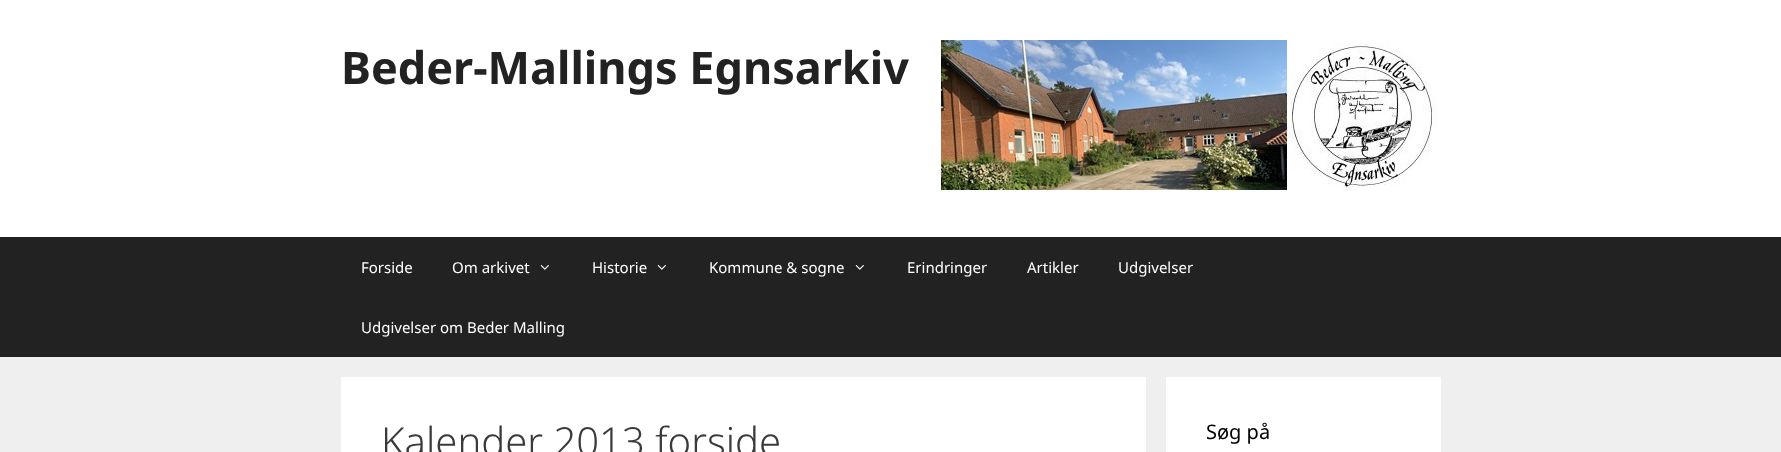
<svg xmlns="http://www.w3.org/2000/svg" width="1781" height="452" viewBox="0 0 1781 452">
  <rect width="100%" height="100%" fill="#efefef"/>
  <path d="M0 0h1781v237H0z" fill="#fff"/>
  <image x="941" y="40" width="496" height="150" href="img/1.png"/>
  <path d="M0 237h1781v120H0z" fill="#222"/>
  <image x="540" y="265" width="9" height="5" href="img/2.png"/>
  <image x="657" y="265" width="9" height="5" href="img/2.png"/>
  <image x="855" y="265" width="9" height="5" href="img/2.png"/>
  <path d="M341 377h805v75H341z" fill="#fff"/>
  <path d="M1166 377h275v75H1166z" fill="#fff"/>
  <text x="341" y="84" font-family="Noto Sans" font-size="45" font-weight="bold" fill="#222">Beder-Mallings Egnsarkiv</text>
  <g font-family="Noto Sans" font-size="15" fill="#fff">
    <text x="361" y="273">Forside</text>
    <text x="452" y="273">Om arkivet</text>
    <text x="592" y="273">Historie</text>
    <text x="709" y="273">Kommune &amp; sogne</text>
    <text x="907" y="273">Erindringer</text>
    <text x="1027" y="273">Artikler</text>
    <text x="1118" y="273">Udgivelser</text>
    <text x="361" y="333">Udgivelser om Beder Malling</text>
  </g>
  <text x="381" y="456" font-family="Noto Sans" font-size="40" font-weight="300" fill="#3a3a3a">Kalender 2013 forside</text>
  <text x="1206" y="439" font-family="Noto Sans" font-size="20" fill="#000">Søg på</text>
</svg>
